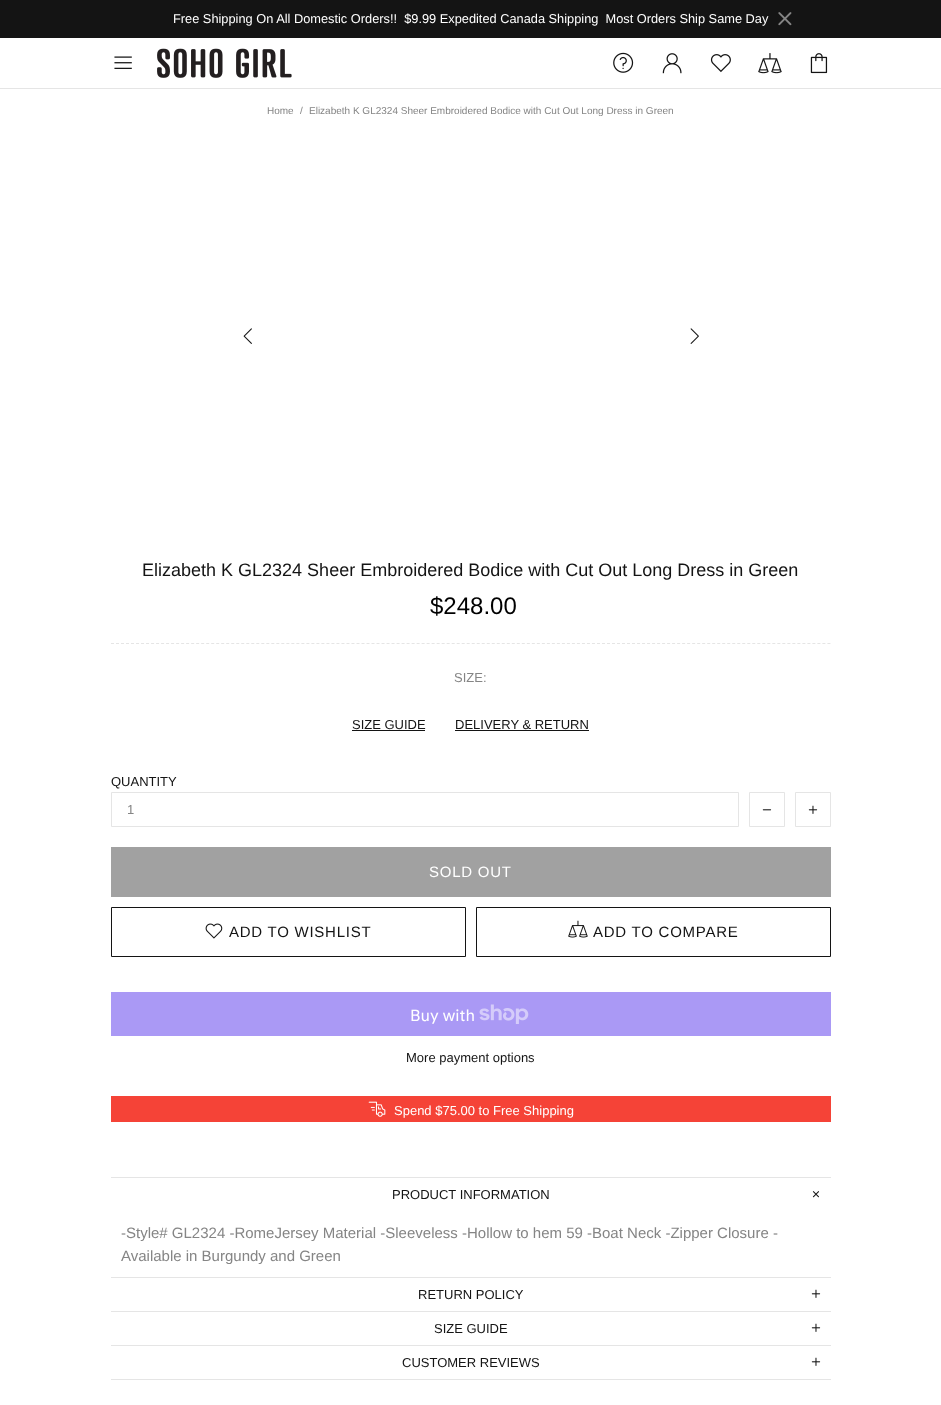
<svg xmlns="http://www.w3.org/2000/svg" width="941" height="1405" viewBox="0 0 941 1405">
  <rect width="100%" height="100%" fill="#fff"/>
  <path d="M0 0h941v38H0z" fill="#141414"/>
  <image x="778" y="12" width="14" height="14" href="img/1.png"/>
  <image x="114" y="56" width="18" height="13" href="img/2.png"/>
  <image x="157" y="48" width="135" height="30" href="img/3.png"/>
  <image x="613" y="52" width="21" height="21" href="img/4.png"/>
  <image x="662" y="53" width="20" height="21" href="img/5.png"/>
  <image x="710" y="54" width="21" height="19" href="img/6.png"/>
  <image x="758" y="53" width="24" height="21" href="img/7.png"/>
  <image x="810" y="53" width="18" height="21" href="img/8.png"/>
  <path d="M0 88h941v1H0z" fill="#e5e5e5"/>
  <image x="243" y="328" width="9" height="16" href="img/9.png"/>
  <image x="690" y="328" width="9" height="16" href="img/10.png"/>
  <path d="M111 643.5H831" fill="none" stroke="#e5e5e5" stroke-dasharray="3 2.01"/>
  <path d="M352 730h73v1H352z" fill="#141414"/>
  <path d="M455 730h134v1H455z" fill="#141414"/>
  <path d="M111.5 792.5h627v34H111.5z" fill="none" stroke="#e5e5e5"/>
  <path d="M749.5 792.5h35v34H749.5z" fill="none" stroke="#e5e5e5"/>
  <image x="762" y="809" width="10" height="2" href="img/11.png"/>
  <path d="M795.5 792.5h35v34H795.5z" fill="none" stroke="#e5e5e5"/>
  <image x="808" y="805" width="10" height="9" href="img/12.png"/>
  <path d="M111 847h720v50H111z" fill="#a1a1a1"/>
  <path d="M111.5 907.5h354v49H111.5z" fill="none" stroke="#141414"/>
  <image x="205" y="923" width="18" height="16" href="img/13.png"/>
  <path d="M476.5 907.5h354v49H476.5z" fill="none" stroke="#141414"/>
  <image x="568" y="920" width="20" height="18" href="img/14.png"/>
  <path d="M111 992h720v44H111z" fill="#aa99f5"/>
  <image x="479" y="1004" width="50" height="20" href="img/15.png"/>
  <path d="M111 1096h720v26H111z" fill="#f54337"/>
  <image x="368" y="1101" width="18" height="16" href="img/16.png"/>
  <path d="M111 1177h720v1H111z" fill="#e5e5e5"/>
  <path d="M111 1379h720v1H111z" fill="#e5e5e5"/>
  <image x="812" y="1191" width="7" height="7" href="img/17.png"/>
  <path d="M111 1277h720v1H111z" fill="#e5e5e5"/>
  <image x="811" y="1289" width="10" height="9" href="img/12.png"/>
  <path d="M111 1311h720v1H111z" fill="#e5e5e5"/>
  <image x="811" y="1323" width="10" height="9" href="img/12.png"/>
  <path d="M111 1345h720v1H111z" fill="#e5e5e5"/>
  <image x="811" y="1357" width="10" height="9" href="img/12.png"/>
  <text x="173" y="23" font-family="Arimo" font-size="12.8" fill="#fff" xml:space="preserve">Free Shipping On All Domestic Orders!!  $9.99 Expedited Canada Shipping  Most Orders Ship Same Day</text>
  <g font-family="Arimo" font-size="10" fill="#858585">
    <text x="267" y="114">Home</text>
    <text x="300" y="114">/</text>
    <text x="309" y="114">Elizabeth K GL2324 Sheer Embroidered Bodice with Cut Out Long Dress in Green</text>
  </g>
  <text x="142" y="576" font-family="Arimo" font-size="18" fill="#141414">Elizabeth K GL2324 Sheer Embroidered Bodice with Cut Out Long Dress in Green</text>
  <text x="430" y="614" font-family="Arimo" font-size="24" fill="#000">$248.00</text>
  <text x="454" y="682" font-family="Arimo" font-size="13" fill="#858585">SIZE:</text>
  <g font-family="Arimo" font-size="13" fill="#141414">
    <text x="352" y="729">SIZE GUIDE</text>
    <text x="455" y="729">DELIVERY &amp; RETURN</text>
    <text x="111" y="786">QUANTITY</text>
  </g>
  <text x="127" y="814" font-family="Arimo" font-size="13" fill="#858585">1</text>
  <text x="429" y="877" font-family="Arimo" font-size="15" letter-spacing="0.75" fill="#fff">SOLD OUT</text>
  <g font-family="Arimo" font-size="15" letter-spacing="0.75" fill="#141414">
    <text x="229" y="937">ADD TO WISHLIST</text>
    <text x="593" y="937">ADD TO COMPARE</text>
  </g>
  <text x="410" y="1021" font-family="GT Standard" font-size="16" fill="#fff">Buy with</text>
  <text x="406" y="1062" font-family="Arimo" font-size="13" fill="#141414">More payment options</text>
  <text x="394" y="1115" font-family="Arimo" font-size="13" fill="#fff">Spend $75.00 to Free Shipping</text>
  <text x="392" y="1199" font-family="Arimo" font-size="13" fill="#141414">PRODUCT INFORMATION</text>
  <g font-family="Arimo" font-size="15" fill="#858585">
    <text x="121" y="1238">-Style# GL2324 -RomeJersey Material -Sleeveless -Hollow to hem 59 -Boat Neck -Zipper Closure -</text>
    <text x="121" y="1261">Available in Burgundy and Green</text>
  </g>
  <g font-family="Arimo" font-size="13" fill="#141414">
    <text x="418" y="1299">RETURN POLICY</text>
    <text x="434" y="1333">SIZE GUIDE</text>
    <text x="402" y="1367">CUSTOMER REVIEWS</text>
  </g>
</svg>
